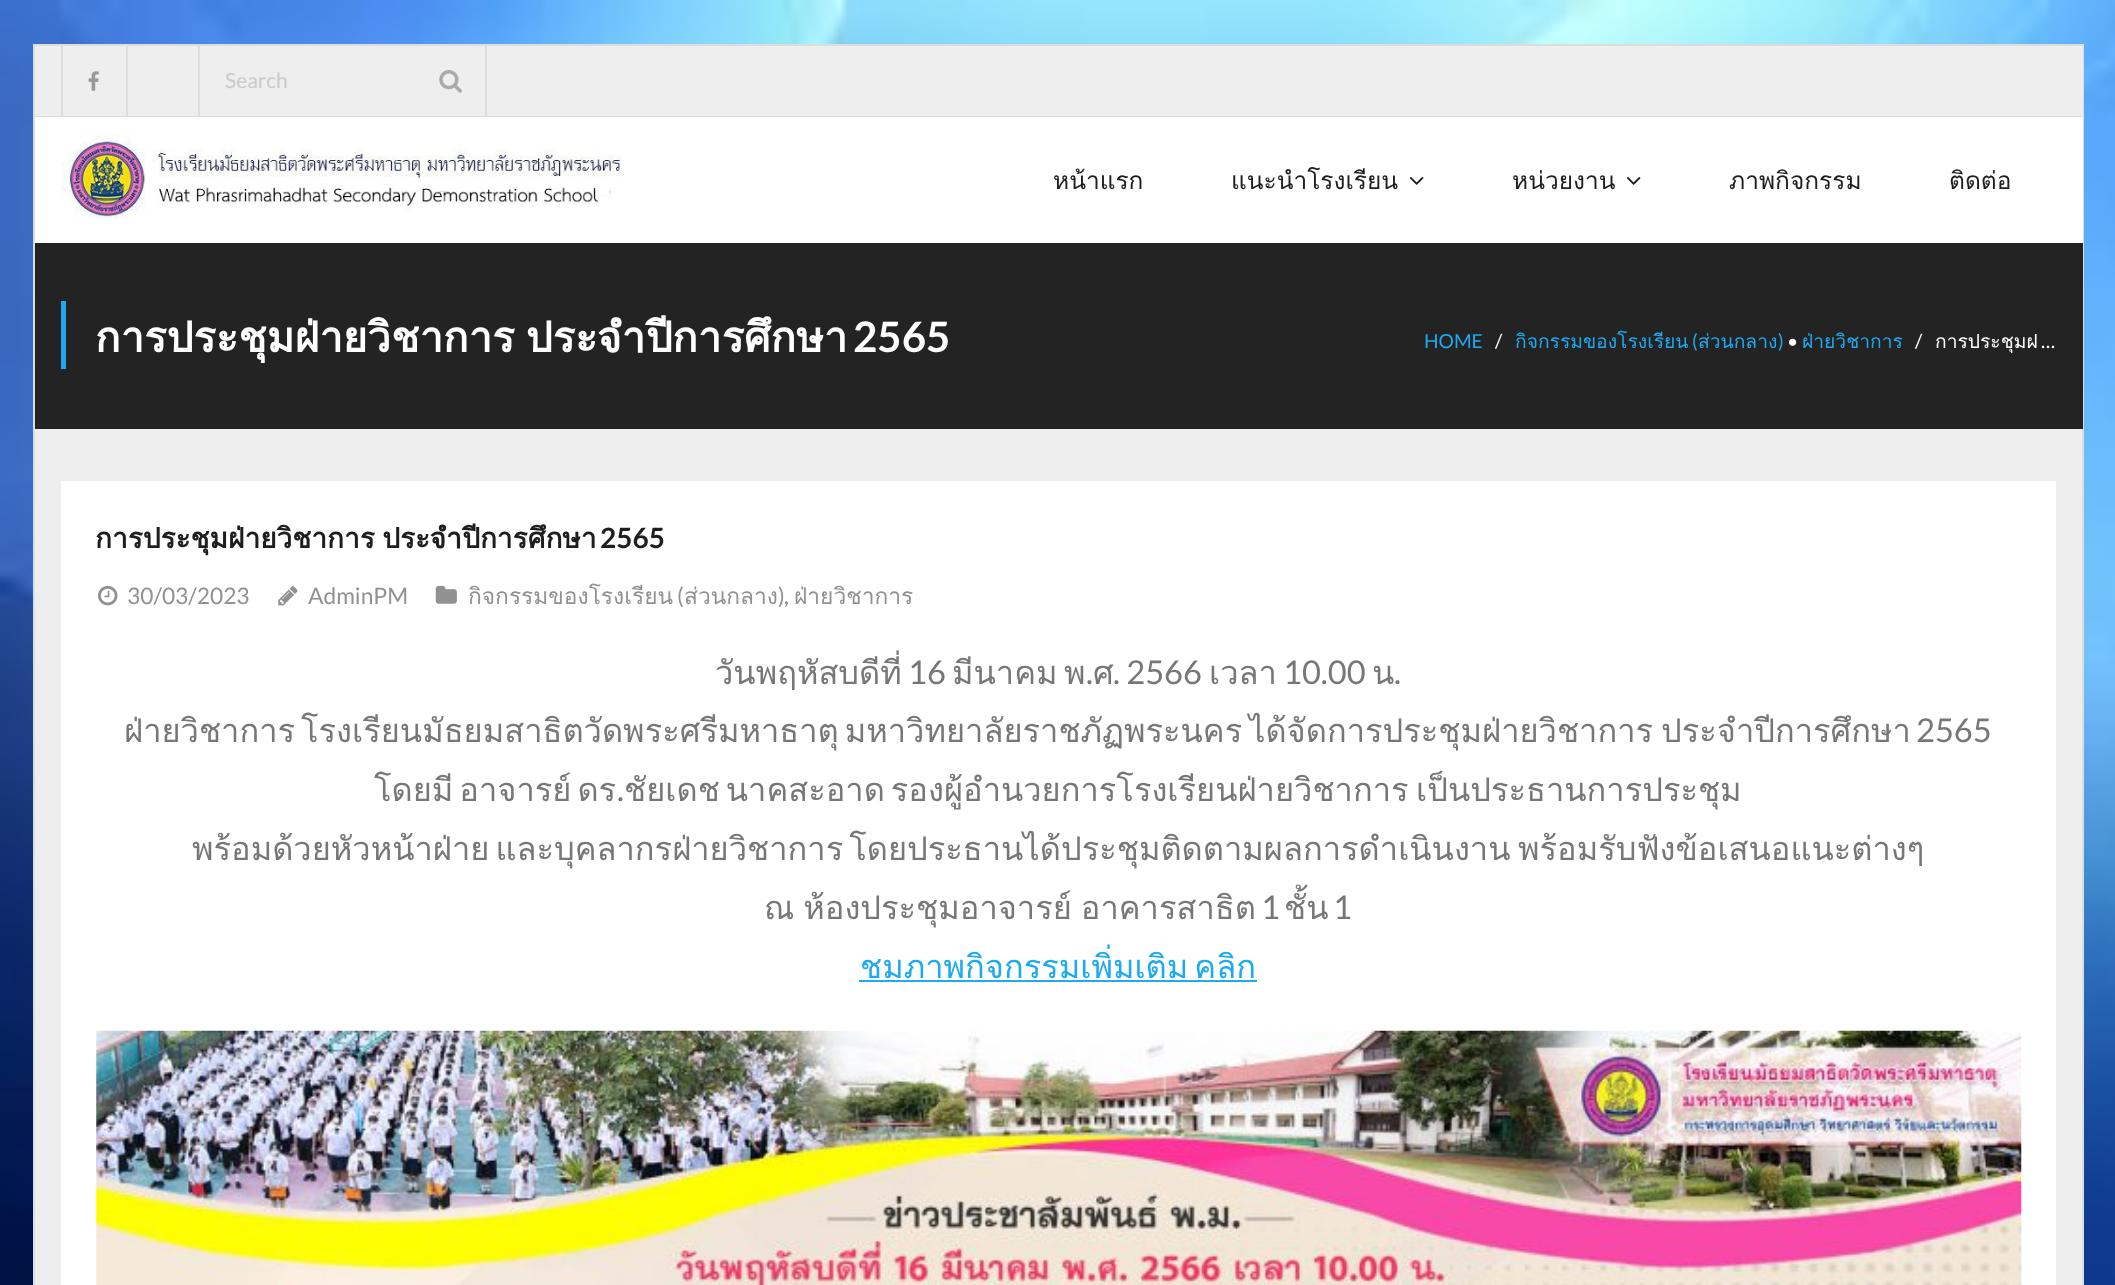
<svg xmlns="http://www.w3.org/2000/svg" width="2115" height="1285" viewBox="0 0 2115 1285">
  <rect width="100%" height="100%" fill="#fff"/>
  <image x="0" y="0" width="2115" height="1285" href="img/1.png"/>
  <path d="M35 429h2047v856H35z" fill="#eee"/>
  <path d="M34 45h2049v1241H34z" fill="none" stroke="#ddd" stroke-width="2"/>
  <path d="M35 46h2048v70H35z" fill="#eee"/>
  <path d="M35 116h2048v1H35z" fill="#ddd"/>
  <path d="M126 46h2v70H126z" fill="#ddd"/>
  <path d="M61 46h2v70H61z" fill="#ddd"/>
  <image x="88" y="71" width="11" height="20" href="img/2.png"/>
  <path d="M485 46h2v70H485z" fill="#ddd"/>
  <path d="M198 46h2v70H198z" fill="#ddd"/>
  <image x="439" y="70" width="23" height="23" href="img/3.png"/>
  <path d="M35 117h2048v126H35z" fill="#fff"/>
  <image x="61" y="134" width="561" height="85" href="img/4.png"/>
  <image x="1409" y="177" width="15" height="8" href="img/5.png"/>
  <image x="1626" y="177" width="15" height="8" href="img/5.png"/>
  <path d="M35 243h2048v186H35z" fill="#232323"/>
  <path d="M61 301h5v68H61z" fill="#1eaaf1"/>
  <path d="M61 481h1995v804H61z" fill="#fff"/>
  <image x="98" y="585" width="20" height="21" href="img/6.png"/>
  <image x="278" y="586" width="20" height="20" href="img/7.png"/>
  <image x="435" y="585" width="22" height="19" href="img/8.png"/>
  <path d="M859 980h398v2H859z" fill="#1eaaf1"/>
  <image x="96" y="1030" width="1926" height="255" href="img/9.png"/>
  <text x="225" y="88" font-family="Lato" font-size="21" fill="#cacaca">Search</text>
  <g font-family="Loma" font-size="24.5" fill="#1e1e1e">
    <text x="1053" y="189">หน้าแรก</text>
    <text x="1231" y="189">แนะนำโรงเรียน</text>
    <text x="1512" y="189">หน่วยงาน</text>
    <text x="1729" y="189">ภาพกิจกรรม</text>
    <text x="1949" y="189">ติดต่อ</text>
  </g>
  <text x="95" y="352" word-spacing="-3" font-family="Loma" font-size="42" font-weight="bold" fill="#fff">การประชุมฝ่ายวิชาการ ประจำปีการศึกษา</text>
  <text x="853" y="352" font-family="Lato" font-size="42" font-weight="bold" fill="#fff">2565</text>
  <text x="1495" y="348" font-family="Lato" font-size="19.25" fill="#fff">/</text>
  <text x="1515" y="348" font-family="Loma" font-size="19.25" fill="#1eaaf1">กิจกรรมของโรงเรียน</text>
  <g font-family="Lato" font-size="19.25" fill="#1eaaf1">
    <text x="1692" y="348">(</text>
    <text x="1424" y="348">HOME</text>
  </g>
  <text x="1698" y="348" font-family="Loma" font-size="19.25" fill="#1eaaf1">ส่วนกลาง</text>
  <text x="1778" y="348" font-family="Lato" font-size="19.25" fill="#1eaaf1">)</text>
  <text x="1787" y="348" font-family="Lato" font-size="19.25" fill="#fff">•</text>
  <text x="1802" y="348" font-family="Loma" font-size="19.25" fill="#1eaaf1">ฝ่ายวิชาการ</text>
  <text x="1915" y="348" font-family="Lato" font-size="19.25" fill="#fff">/</text>
  <text x="1935" y="348" font-family="Loma" font-size="19.25" fill="#fff">การประชุมฝ</text>
  <text x="2041" y="348" font-family="Lato" font-size="19.25" fill="#fff">…</text>
  <text x="95" y="548" word-spacing="-2" font-family="Loma" font-size="28" font-weight="bold" fill="#1e1e1e">การประชุมฝ่ายวิชาการ ประจำปีการศึกษา</text>
  <text x="600" y="548" font-family="Lato" font-size="28" font-weight="bold" fill="#1e1e1e">2565</text>
  <g font-family="Lato" font-size="22.75" fill="#919191">
    <text x="127" y="604">30/03/2023</text>
    <text x="308" y="604">AdminPM</text>
  </g>
  <text x="468" y="604" font-family="Loma" font-size="22.75" fill="#919191">กิจกรรมของโรงเรียน</text>
  <text x="677" y="604" font-family="Lato" font-size="22.75" fill="#919191">(</text>
  <text x="684" y="604" font-family="Loma" font-size="22.75" fill="#919191">ส่วนกลาง</text>
  <text x="778" y="604" font-family="Lato" font-size="22.75" fill="#919191">)</text>
  <text x="784" y="604" font-family="Lato" font-size="22.75" fill="#858585">,</text>
  <text x="794" y="604" font-family="Loma" font-size="22.75" fill="#919191">ฝ่ายวิชาการ</text>
  <text x="715" y="684" font-family="Loma" font-size="32.65" fill="#777">วันพฤหัสบดีที่</text>
  <text x="908" y="684" font-family="Lato" font-size="32.65" fill="#777">16</text>
  <g font-family="Loma" font-size="32.65" fill="#777">
    <text x="952" y="684">มีนาคม</text>
    <text x="1064" y="684">พ</text>
  </g>
  <text x="1086" y="684" font-family="Lato" font-size="32.65" fill="#777">.</text>
  <text x="1093" y="684" font-family="Loma" font-size="32.65" fill="#777">ศ</text>
  <text x="1113" y="684" font-family="Lato" font-size="32.65" fill="#777">. 2566</text>
  <text x="1209" y="684" font-family="Loma" font-size="32.65" fill="#777">เวลา</text>
  <text x="1283" y="684" font-family="Lato" font-size="32.65" fill="#777">10.00</text>
  <text x="1372" y="684" font-family="Loma" font-size="32.65" fill="#777">น</text>
  <text x="1394" y="684" font-family="Lato" font-size="32.65" fill="#777">.</text>
  <g font-family="Loma" font-size="32.65" fill="#777">
    <text x="124" y="742" word-spacing="-5">ฝ่ายวิชาการ โรงเรียนมัธยมสาธิตวัดพระศรีมหาธาตุ มหาวิทยาลัยราชภัฏพระนคร</text>
    <text x="1249" y="742" word-spacing="-3">ได้จัดการประชุมฝ่ายวิชาการ ประจำปีการศึกษา</text>
  </g>
  <text x="1916" y="742" font-family="Lato" font-size="32.65" fill="#777">2565</text>
  <text x="374" y="801" word-spacing="-5" font-family="Loma" font-size="32.65" fill="#777">โดยมี อาจารย์ ดร</text>
  <text x="617" y="801" font-family="Lato" font-size="32.65" fill="#777">.</text>
  <g font-family="Loma" font-size="32.65" fill="#777">
    <text x="624" y="801" word-spacing="-5">ชัยเดช นาคสะอาด รองผู้อำนวยการโรงเรียนฝ่ายวิชาการ</text>
    <text x="1416" y="801">เป็นประธานการประชุม</text>
    <text x="192" y="860" word-spacing="-5">พร้อมด้วยหัวหน้าฝ่าย และบุคลากรฝ่ายวิชาการ โดยประธานได้ประชุมติดตามผลการดำเนินงาน</text>
    <text x="1518" y="860">พร้อมรับฟังข้อเสนอแนะต่างๆ</text>
    <text x="764" y="919" word-spacing="-2">ณ ห้องประชุมอาจารย์ อาคารสาธิต</text>
  </g>
  <text x="1261" y="919" font-family="Lato" font-size="32.65" fill="#777">1</text>
  <text x="1284" y="919" font-family="Loma" font-size="32.65" fill="#777">ชั้น</text>
  <text x="1333" y="919" font-family="Lato" font-size="32.65" fill="#777">1</text>
  <text x="860" y="978" word-spacing="-5" font-family="Loma" font-size="32.65" fill="#1eaaf1">ชมภาพกิจกรรมเพิ่มเติม คลิก</text>
</svg>
